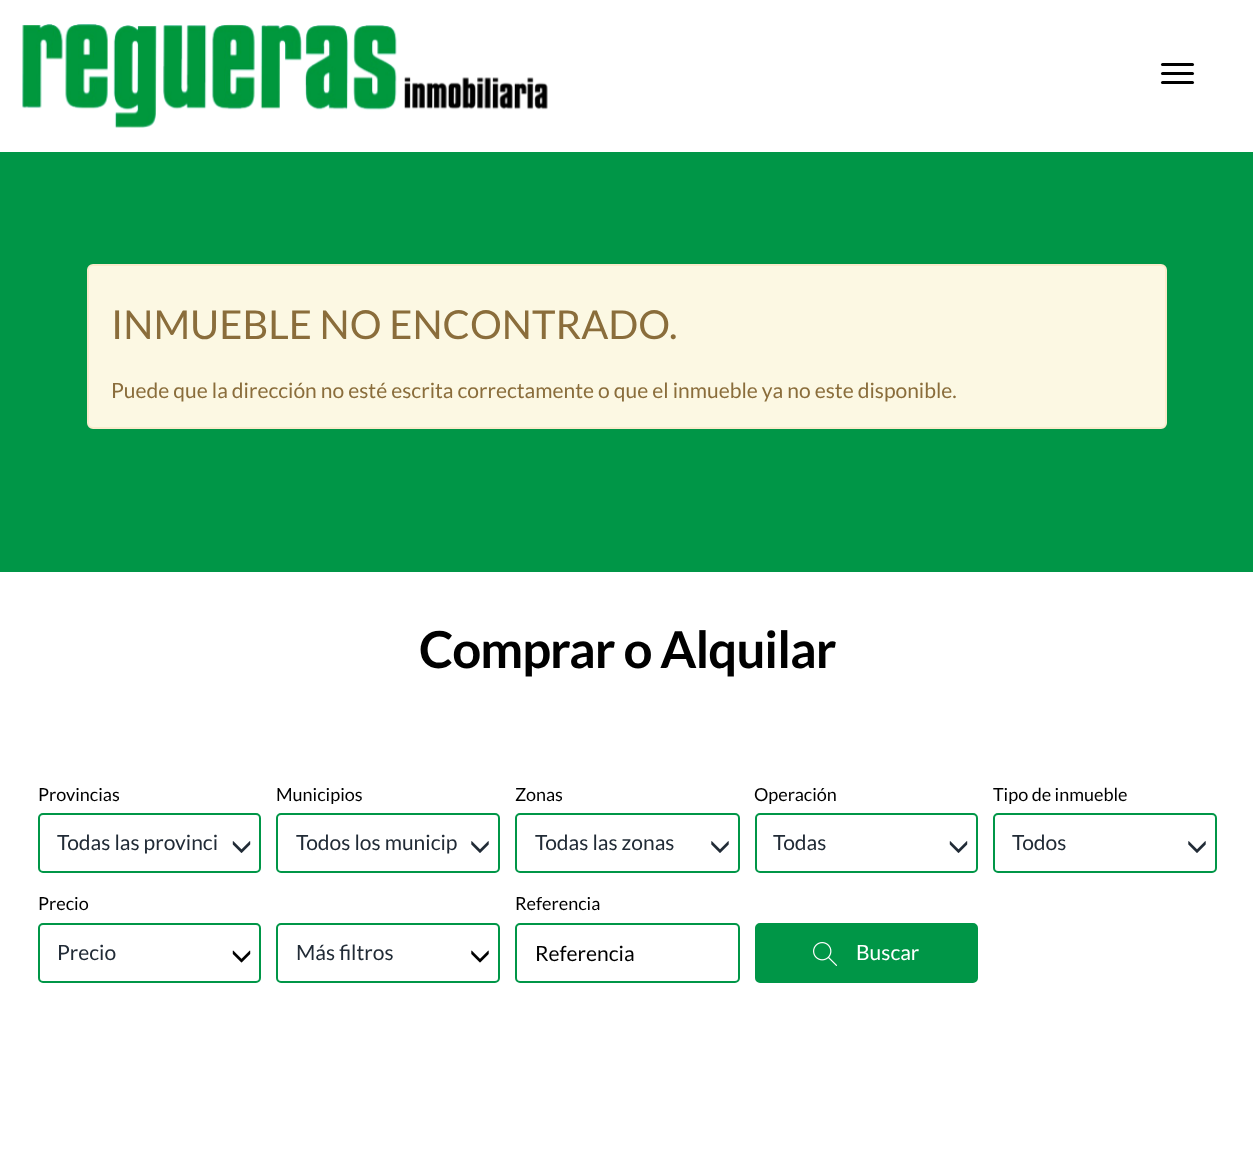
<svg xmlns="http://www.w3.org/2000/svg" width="1253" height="1160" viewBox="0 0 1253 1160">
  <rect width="100%" height="100%" fill="#fff"/>
  <image x="22" y="24" width="526" height="104" href="img/1.png"/>
  <rect x="1161" y="63" width="33" height="3" rx="1.5" fill="#000"/>
  <rect x="1161" y="72" width="33" height="3" rx="1.5" fill="#000"/>
  <rect x="1161" y="81" width="33" height="3" rx="1.5" fill="#000"/>
  <path d="M0 152h1253v420H0z" fill="#009647"/>
  <rect x="88" y="265" width="1078" height="163" rx="5" fill="#fcf8e3" stroke="#faebcc" stroke-width="2"/>
  <rect x="39" y="814" width="221" height="58" rx="4" fill="none" stroke="#009647" stroke-width="2"/>
  <image x="232" y="841" width="19" height="12" href="img/2.png"/>
  <rect x="277" y="814" width="222" height="58" rx="4" fill="none" stroke="#009647" stroke-width="2"/>
  <image x="471" y="841" width="18" height="12" href="img/3.png"/>
  <rect x="516" y="814" width="223" height="58" rx="4" fill="none" stroke="#009647" stroke-width="2"/>
  <image x="711" y="841" width="18" height="12" href="img/3.png"/>
  <rect x="756" y="814" width="221" height="58" rx="4" fill="none" stroke="#009647" stroke-width="2"/>
  <image x="949" y="841" width="19" height="12" href="img/2.png"/>
  <rect x="994" y="814" width="222" height="58" rx="4" fill="none" stroke="#009647" stroke-width="2"/>
  <image x="1188" y="841" width="18" height="12" href="img/3.png"/>
  <rect x="39" y="924" width="221" height="58" rx="4" fill="none" stroke="#009647" stroke-width="2"/>
  <image x="232" y="950" width="19" height="13" href="img/4.png"/>
  <rect x="277" y="924" width="222" height="58" rx="4" fill="none" stroke="#009647" stroke-width="2"/>
  <image x="471" y="950" width="18" height="13" href="img/5.png"/>
  <rect x="516" y="924" width="223" height="58" rx="4" fill="none" stroke="#009647" stroke-width="2"/>
  <rect x="756" y="924" width="221" height="58" rx="4" fill="#009647" stroke="#009647" stroke-width="2"/>
  <image x="813" y="942" width="24" height="24" href="img/6.png"/>
  <text x="111" y="339" font-family="Lato" font-size="39.9" fill="#8a6d3b">INMUEBLE NO ENCONTRADO.</text>
  <text x="111" y="398" font-family="Lato" font-size="21" fill="#8a6d3b">Puede que la dirección no esté escrita correctamente o que el inmueble ya no este disponible.</text>
  <text x="419" y="668" font-family="Lato" font-size="51" font-weight="bold" letter-spacing="-1" fill="#000">Comprar o Alquilar</text>
  <text x="38" y="801" font-family="Lato" font-size="18" fill="#000">Provincias</text>
  <text x="57" y="850" font-family="Lato" font-size="21" fill="#212b36">Todas las provinci</text>
  <text x="276" y="801" font-family="Lato" font-size="18" fill="#000">Municipios</text>
  <text x="296" y="850" font-family="Lato" font-size="21" fill="#212b36">Todos los municip</text>
  <text x="515" y="801" font-family="Lato" font-size="18" fill="#000">Zonas</text>
  <text x="535" y="850" font-family="Lato" font-size="21" fill="#212b36">Todas las zonas</text>
  <text x="754" y="801" font-family="Lato" font-size="18" fill="#000">Operación</text>
  <text x="773" y="850" font-family="Lato" font-size="21" fill="#212b36">Todas</text>
  <text x="993" y="801" font-family="Lato" font-size="18" fill="#000">Tipo de inmueble</text>
  <text x="1012" y="850" font-family="Lato" font-size="21" fill="#212b36">Todos</text>
  <text x="38" y="910" font-family="Lato" font-size="18" fill="#000">Precio</text>
  <g font-family="Lato" font-size="21" fill="#212b36">
    <text x="57" y="960">Precio</text>
    <text x="296" y="960">Más filtros</text>
  </g>
  <text x="515" y="910" font-family="Lato" font-size="18" fill="#000">Referencia</text>
  <text x="535" y="961" font-family="Lato" font-size="21" fill="#000">Referencia</text>
  <text x="856" y="960" font-family="Lato" font-size="21" fill="#fff">Buscar</text>
</svg>
